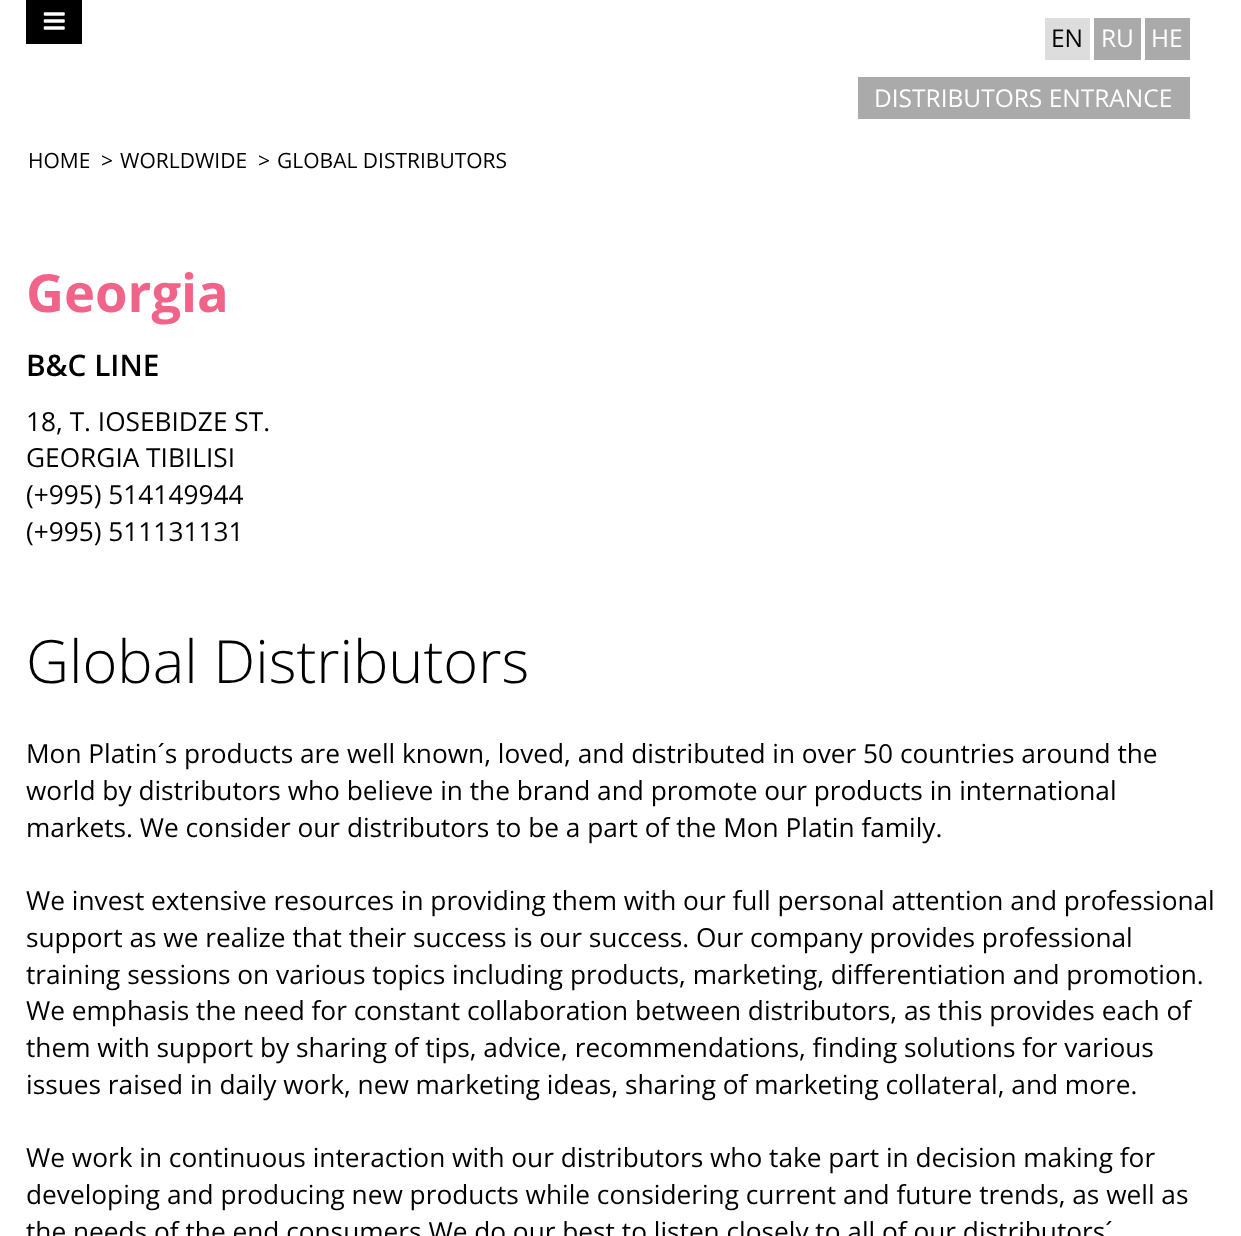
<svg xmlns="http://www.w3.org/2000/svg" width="1241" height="1236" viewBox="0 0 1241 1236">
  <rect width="100%" height="100%" fill="#fff"/>
  <path d="M26 0h56v44H26z" fill="#000"/>
  <image x="43" y="12" width="22" height="18" href="img/1.png"/>
  <path d="M1045 18h45v42H1045z" fill="#ddd"/>
  <path d="M1094 18h47v42H1094z" fill="#aaa"/>
  <path d="M1145 18h45v42H1145z" fill="#aaa"/>
  <path d="M858 77h332v42H858z" fill="#aaa"/>
  <text x="1051" y="47" font-family="Open Sans" font-size="24.5" fill="#000">EN</text>
  <g font-family="Open Sans" font-size="24.5" fill="#fff">
    <text x="1101" y="47">RU</text>
    <text x="1151" y="47">HE</text>
    <text x="874" y="107">DISTRIBUTORS ENTRANCE</text>
  </g>
  <g font-family="Open Sans" font-size="21" fill="#000">
    <text x="28" y="168">HOME</text>
    <text x="101" y="168">&gt;</text>
    <text x="120" y="168">WORLDWIDE</text>
    <text x="258" y="168">&gt;</text>
    <text x="277" y="168">GLOBAL DISTRIBUTORS</text>
  </g>
  <text x="26" y="312" font-family="Open Sans" font-size="52.5" font-weight="bold" fill="#f26389">Georgia</text>
  <text x="26" y="376" font-family="Open Sans" font-size="29.75" font-weight="600" fill="#000">B&amp;C LINE</text>
  <g font-family="Open Sans" font-size="26.25" fill="#000">
    <text x="26" y="431">18, T. IOSEBIDZE ST.</text>
    <text x="26" y="467">GEORGIA TIBILISI</text>
    <text x="26" y="504">(+995) 514149944</text>
    <text x="26" y="541">(+995) 511131131</text>
  </g>
  <text x="26" y="683" font-family="Open Sans" font-size="59.5" font-weight="300" fill="#000">Global Distributors</text>
  <g font-family="Open Sans" font-size="26.25" fill="#000">
    <text x="26" y="763">Mon Platin´s products are well known, loved, and distributed in over 50 countries around the</text>
    <text x="26" y="800">world by distributors who believe in the brand and promote our products in international</text>
    <text x="26" y="837">markets. We consider our distributors to be a part of the Mon Platin family.</text>
    <text x="26" y="910">We invest extensive resources in providing them with our full personal attention and professional</text>
    <text x="26" y="947">support as we realize that their success is our success. Our company provides professional</text>
    <text x="26" y="984">training sessions on various topics including products, marketing, differentiation and promotion.</text>
    <text x="26" y="1020">We emphasis the need for constant collaboration between distributors, as this provides each of</text>
    <text x="26" y="1057">them with support by sharing of tips, advice, recommendations, finding solutions for various</text>
    <text x="26" y="1094">issues raised in daily work, new marketing ideas, sharing of marketing collateral, and more.</text>
    <text x="26" y="1167">We work in continuous interaction with our distributors who take part in decision making for</text>
    <text x="26" y="1204">developing and producing new products while considering current and future trends, as well as</text>
    <text x="26" y="1241">the needs of the end consumers.We do our best to listen closely to all of our distributors´</text>
  </g>
</svg>
